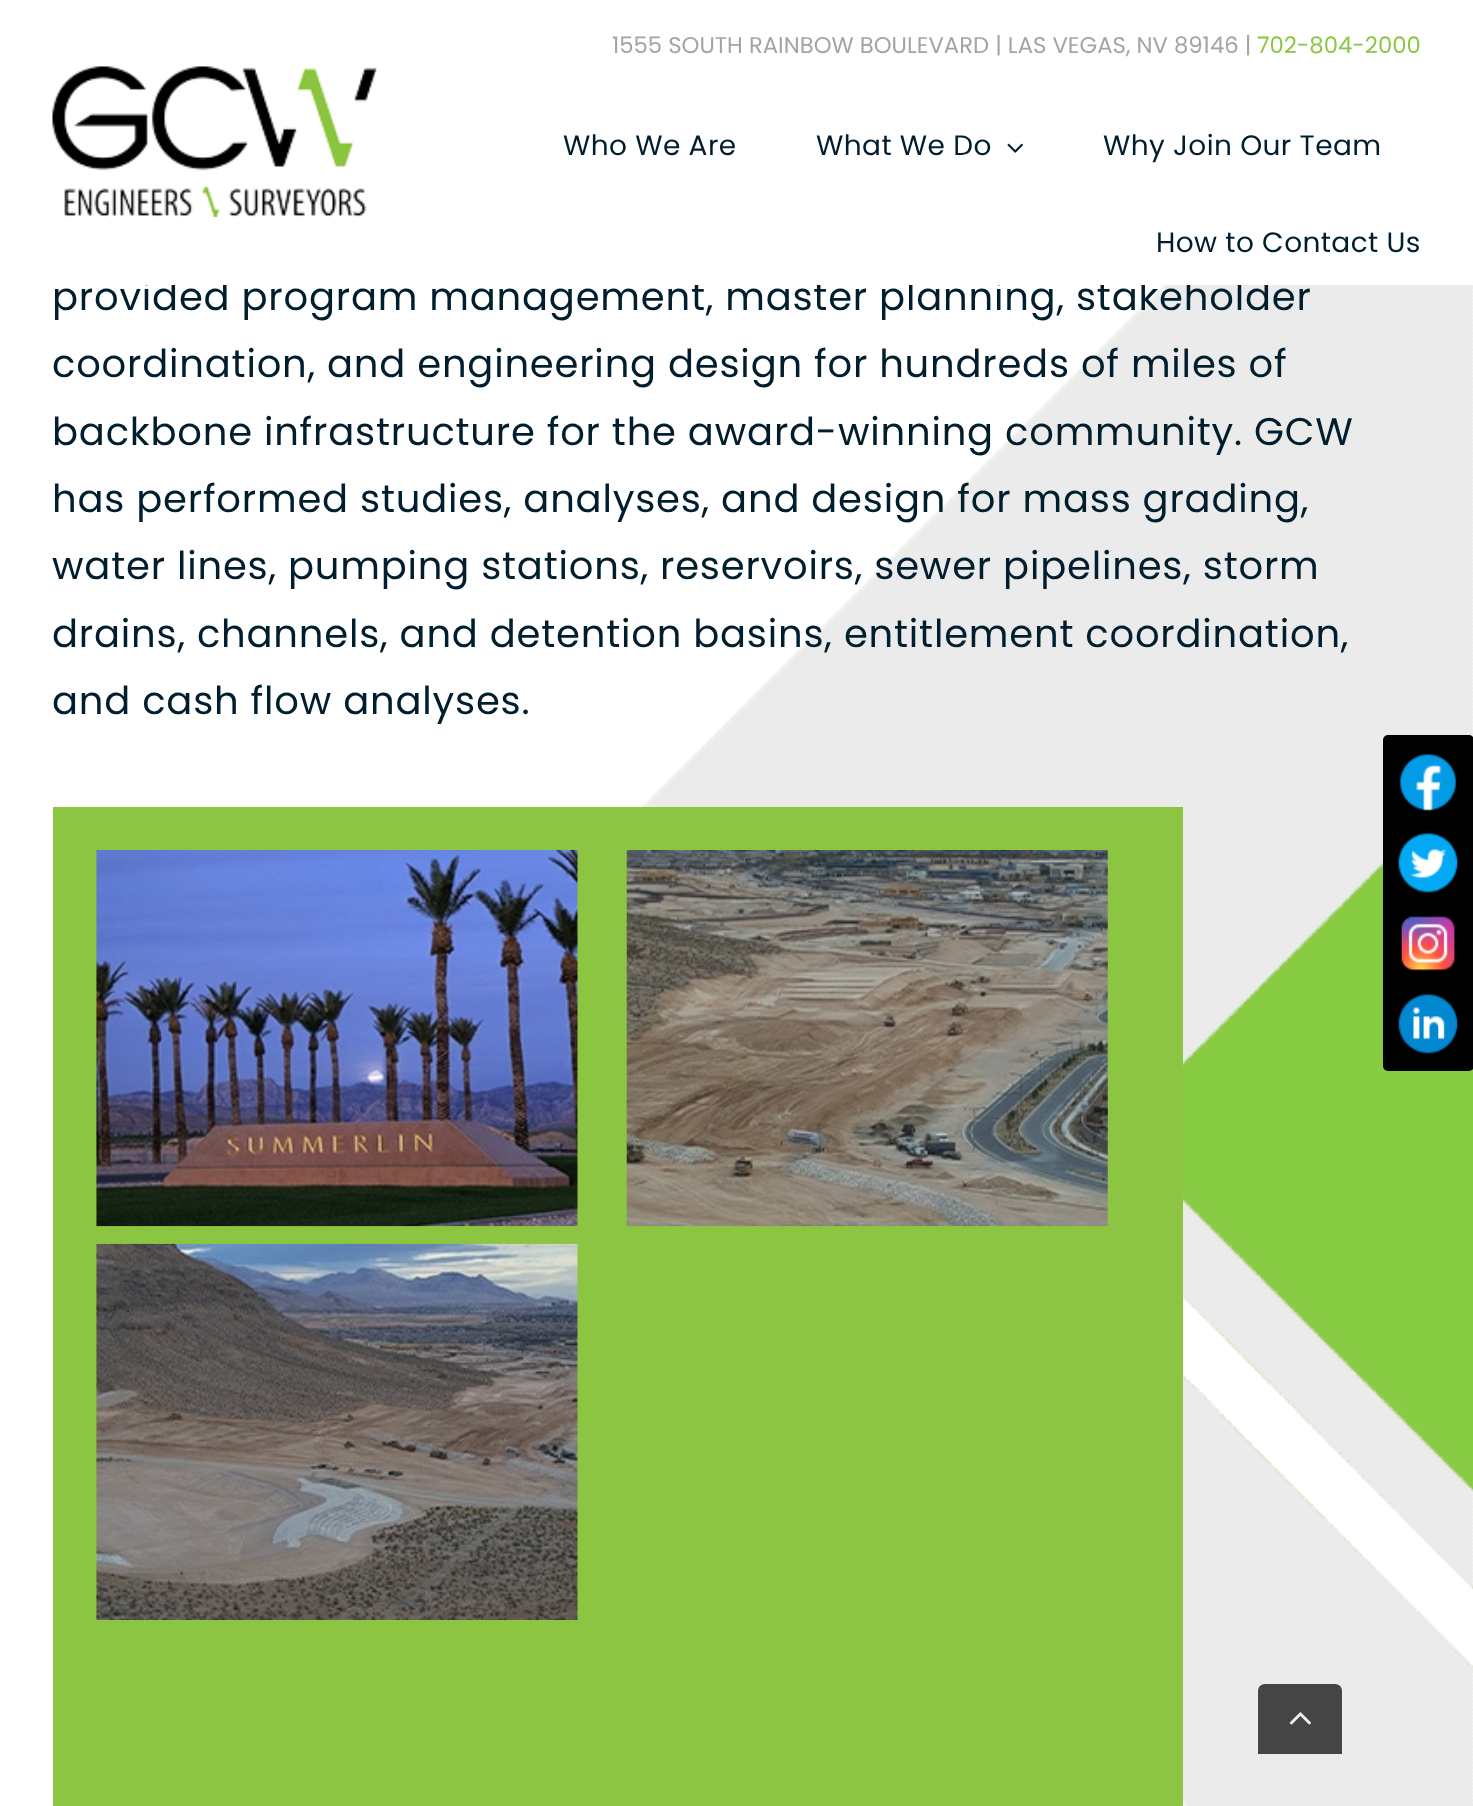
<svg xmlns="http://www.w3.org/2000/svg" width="1473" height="1806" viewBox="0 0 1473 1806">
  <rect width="100%" height="100%" fill="#fff"/>
  <image x="52" y="66" width="325" height="151" href="img/1.png"/>
  <image x="1007" y="143" width="16" height="10" href="img/2.png"/>
  <image x="641" y="285" width="832" height="1521" href="img/3.png"/>
  <path d="M53 807h1130v999H53z" fill="#8bc541"/>
  <image x="96" y="850" width="482" height="377" href="img/4.png"/>
  <image x="626" y="850" width="482" height="377" href="img/5.png"/>
  <image x="96" y="1243" width="482" height="377" href="img/6.png"/>
  <rect x="1383" y="735" width="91" height="336" rx="5" fill="#000"/>
  <image x="1400" y="754" width="56" height="57" href="img/7.png"/>
  <image x="1398" y="833" width="60" height="60" href="img/8.png"/>
  <image x="1401" y="916" width="54" height="55" href="img/9.png"/>
  <image x="1398" y="994" width="60" height="60" href="img/10.png"/>
  <path d="M1265 1684H1335C1339 1684 1342 1687 1342 1691V1754H1258V1691C1258 1687 1261 1684 1265 1684Z" fill="#454545"/>
  <image x="1289" y="1712" width="22" height="13" href="img/11.png"/>
  <text x="612" y="53" font-family="Poppins" font-size="22.75" fill="#a5a4a4">1555 SOUTH RAINBOW BOULEVARD | LAS VEGAS, NV 89146 |</text>
  <text x="1257" y="53" font-family="Poppins" font-size="22.75" fill="#8bc541">702-804-2000</text>
  <g font-family="Poppins" font-size="28" letter-spacing="0.4" fill="#001e2d">
    <text x="563" y="155">Who We Are</text>
    <text x="816" y="155">What We Do</text>
    <text x="1103" y="155">Why Join Our Team</text>
    <text x="1156" y="252">How to Contact Us</text>
  </g>
  <text x="52" y="310" font-family="Poppins" font-size="38.5" letter-spacing="0.8" fill="#001e2d">provided program management, master planning, stakeholder</text>
  <path d="M144 280h1124v5H144z" fill="#fff"/>
  <g font-family="Poppins" font-size="38.5" letter-spacing="0.8" fill="#001e2d">
    <text x="52" y="377">coordination, and engineering design for hundreds of miles of</text>
    <text x="52" y="445">backbone infrastructure for the award-winning community. GCW</text>
    <text x="52" y="512">has performed studies, analyses, and design for mass grading,</text>
    <text x="52" y="579">water lines, pumping stations, reservoirs, sewer pipelines, storm</text>
    <text x="52" y="647">drains, channels, and detention basins, entitlement coordination,</text>
    <text x="52" y="714">and cash flow analyses.</text>
  </g>
</svg>
